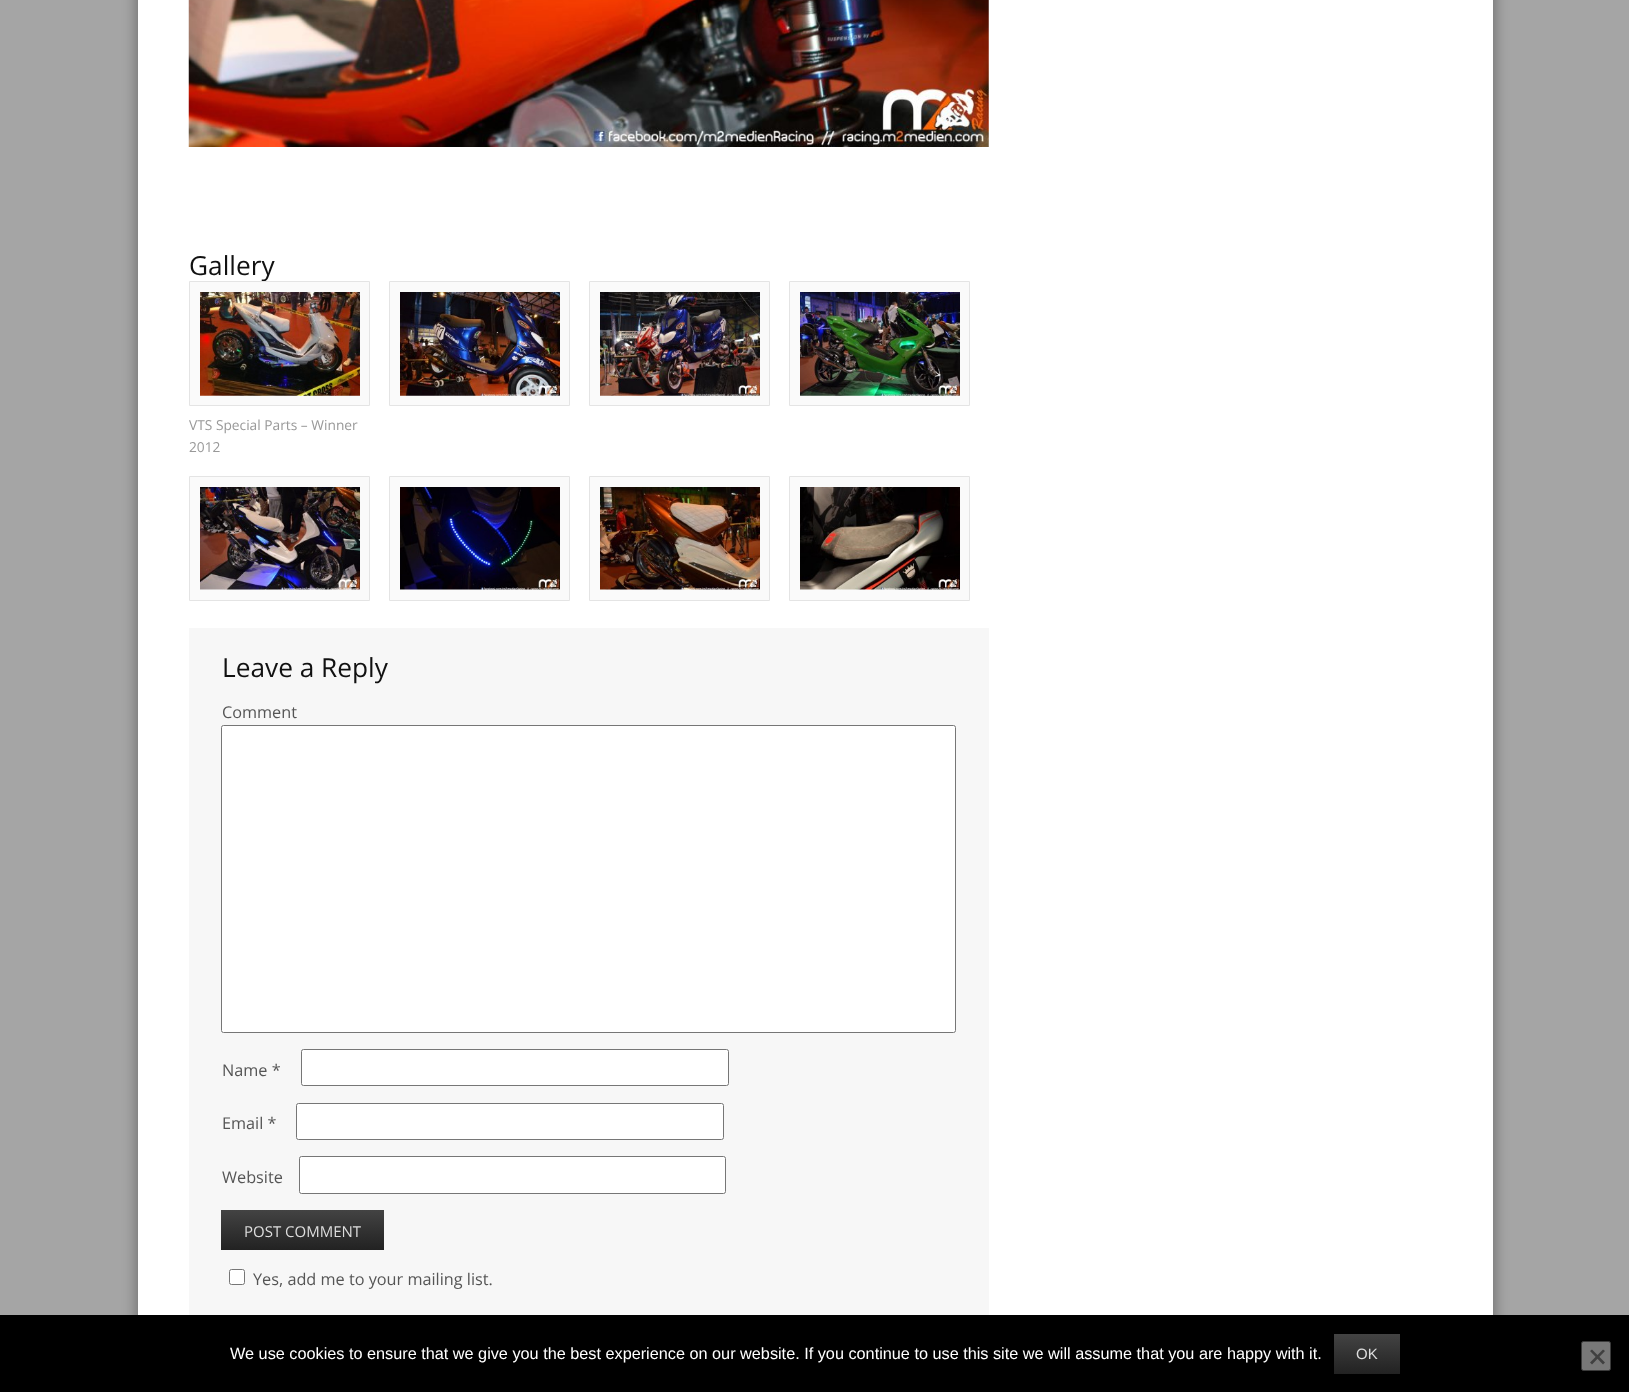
<svg xmlns="http://www.w3.org/2000/svg" width="1629" height="1392" viewBox="0 0 1629 1392">
  <defs>
    <linearGradient id="g1" gradientUnits="userSpaceOnUse" x1="303" y1="1210" x2="303" y2="1250"><stop offset="0" stop-color="#434343"/><stop offset="1" stop-color="#222"/></linearGradient>
    <linearGradient id="g2" gradientUnits="userSpaceOnUse" x1="1367" y1="1334" x2="1367" y2="1374"><stop offset="0" stop-color="#434343"/><stop offset="1" stop-color="#222"/></linearGradient>
  </defs>
  <rect width="100%" height="100%" fill="#a5a5a5"/>
  <path d="M138 -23h1355v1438H138z" fill="#00000066" filter="blur(7.5px)"/>
  <path d="M138 0h1355v1315H138z" fill="#fff"/>
  <image x="188" y="0" width="801" height="147" href="img/1.png"/>
  <path d="M389.5 281.5h180v124H389.5z" fill="#fafafa" stroke="#e4e4e4"/>
  <image x="400" y="292" width="160" height="104" href="img/2.png"/>
  <path d="M589.5 281.5h180v124H589.5z" fill="#fafafa" stroke="#e4e4e4"/>
  <image x="600" y="292" width="160" height="104" href="img/3.png"/>
  <path d="M789.5 281.5h180v124H789.5z" fill="#fafafa" stroke="#e4e4e4"/>
  <image x="800" y="292" width="160" height="104" href="img/4.png"/>
  <path d="M189.5 476.5h180v124H189.5z" fill="#fafafa" stroke="#e4e4e4"/>
  <image x="200" y="487" width="160" height="103" href="img/6.png"/>
  <path d="M389.5 476.5h180v124H389.5z" fill="#fafafa" stroke="#e4e4e4"/>
  <image x="400" y="487" width="160" height="103" href="img/7.png"/>
  <path d="M589.5 476.5h180v124H589.5z" fill="#fafafa" stroke="#e4e4e4"/>
  <image x="600" y="487" width="160" height="103" href="img/8.png"/>
  <path d="M789.5 476.5h180v124H789.5z" fill="#fafafa" stroke="#e4e4e4"/>
  <image x="800" y="487" width="160" height="103" href="img/9.png"/>
  <path d="M189 628h800v687H189z" fill="#f7f7f7"/>
  <rect x="221.5" y="725.5" width="734" height="307" rx="2" fill="#fff" stroke="#767676"/>
  <rect x="301.5" y="1049.5" width="427" height="36" rx="2" fill="#fff" stroke="#767676"/>
  <rect x="296.5" y="1103.5" width="427" height="36" rx="2" fill="#fff" stroke="#767676"/>
  <rect x="299.5" y="1156.5" width="426" height="37" rx="2" fill="#fff" stroke="#767676"/>
  <path d="M221 1210h163v40H221z" fill="url(#g1)"/>
  <rect x="229.5" y="1269.5" width="15" height="15" rx="2" fill="#fff" stroke="#767676"/>
  <path d="M0 1315h1629v77H0z" fill="#000"/>
  <path d="M1334 1334h66v40H1334z" fill="url(#g2)"/>
  <rect x="1581.5" y="1341.5" width="29" height="29" rx="2" fill="#787878" stroke="#3b3b3b"/>
  <path d="M1603 1349.5L1605 1351L1592 1364.5L1590 1362.5Z" fill="#404040"/>
  <path d="M1590 1351L1592 1349.5L1605 1362.5L1603 1364.5Z" fill="#404040"/>
  <text x="189" y="275" font-family="Open Sans" font-size="26.25" fill="#111">Gallery</text>
  <path d="M189.5 281.5h180v124H189.5z" fill="#fafafa" stroke="#e4e4e4"/>
  <image x="200" y="292" width="160" height="104" href="img/5.png"/>
  <g font-family="Open Sans" font-size="13.75" fill="#999">
    <text x="189" y="430">VTS Special Parts – Winner</text>
    <text x="189" y="452">2012</text>
  </g>
  <text x="222" y="677" font-family="Open Sans" font-size="26.25" fill="#111">Leave a Reply</text>
  <g font-family="Open Sans" font-size="16.25" fill="#555">
    <text x="222" y="718">Comment</text>
    <text x="222" y="1076">Name *</text>
    <text x="222" y="1129">Email *</text>
    <text x="222" y="1183">Website</text>
  </g>
  <text x="244" y="1237" font-family="Open Sans" font-size="15" fill="#ddd">POST COMMENT</text>
  <text x="253" y="1285" font-family="Open Sans" font-size="16.25" fill="#555">Yes, add me to your mailing list.</text>
  <text x="230" y="1359" font-family="Liberation Sans" font-size="16.25" fill="#fff">We use cookies to ensure that we give you the best experience on our website. If you continue to use this site we will assume that you are happy with it.</text>
  <text x="1356" y="1359" font-family="Liberation Sans" font-size="15" fill="#ddd">OK</text>
</svg>
